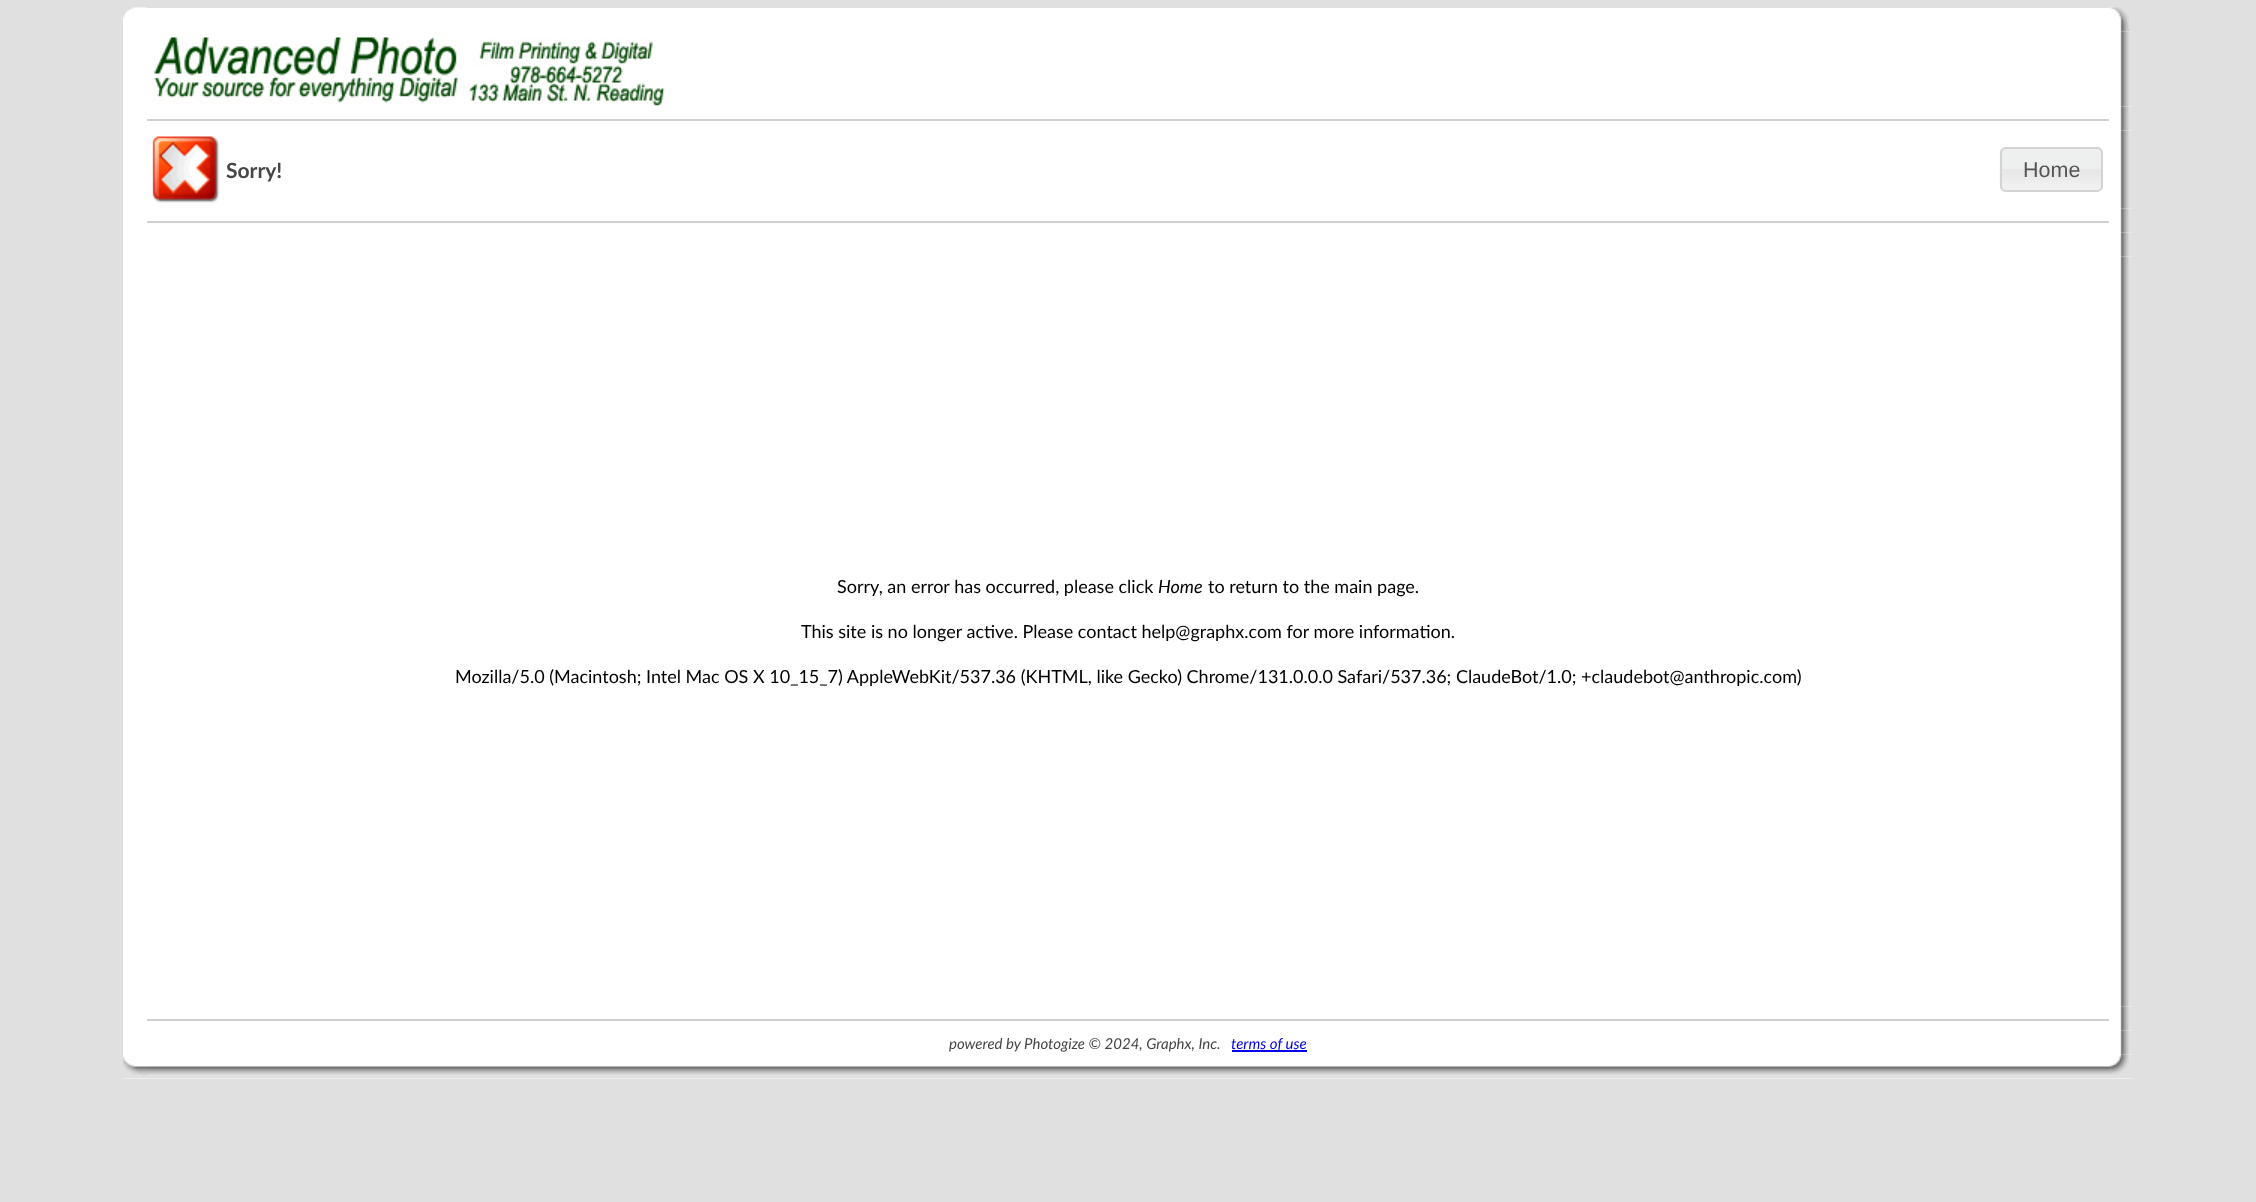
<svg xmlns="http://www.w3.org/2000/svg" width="2256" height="1202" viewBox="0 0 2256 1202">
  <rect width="100%" height="100%" fill="#e0e0e0"/>
  <path d="M123 8h2010v1071H123z" fill="#fff"/>
  <image x="123" y="7" width="24" height="11" href="img/1.png"/>
  <image x="2109" y="7" width="24" height="25" href="img/2.png"/>
  <image x="154" y="37" width="511" height="70" href="img/3.png"/>
  <image x="2120" y="31" width="13" height="76" href="img/4.png"/>
  <path d="M147 119h1962v2H147z" fill="#d0d0d0"/>
  <image x="2120" y="106" width="13" height="25" href="img/5.png"/>
  <image x="152" y="136" width="68" height="67" href="img/6.png"/>
  <image x="1999" y="147" width="104" height="45" href="img/7.png"/>
  <rect x="2001" y="148" width="101" height="43" rx="5" fill="none" stroke="#d3d3d3" stroke-width="2"/>
  <image x="2120" y="130" width="13" height="79" href="img/8.png"/>
  <path d="M147 221h1962v2H147z" fill="#d0d0d0"/>
  <image x="2120" y="208" width="13" height="25" href="img/5.png"/>
  <image x="2120" y="232" width="13" height="25" href="img/5.png"/>
  <image x="2120" y="256" width="13" height="751" href="img/9.png"/>
  <path d="M147 1019h1962v2H147z" fill="#d0d0d0"/>
  <image x="2120" y="1006" width="13" height="25" href="img/5.png"/>
  <path d="M1232 1050h75v2H1232z" fill="#00e"/>
  <image x="2120" y="1030" width="13" height="25" href="img/5.png"/>
  <image x="123" y="1056" width="24" height="23" href="img/10.png"/>
  <image x="147" y="1066" width="1962" height="13" href="img/11.png"/>
  <image x="2109" y="1054" width="24" height="25" href="img/12.png"/>
  <text x="226" y="178" font-family="Lato" font-size="21" font-weight="bold" fill="#464646">Sorry!</text>
  <text x="2023" y="177" font-family="Liberation Sans" font-size="21.5" fill="#555">Home</text>
  <text x="837" y="593" font-family="Lato" font-size="18" fill="#000">Sorry, an error has occurred, please click</text>
  <text x="1158" y="593" font-family="Lato" font-size="18" font-style="italic" fill="#000">Home</text>
  <g font-family="Lato" font-size="18" fill="#000">
    <text x="1208" y="593">to return to the main page.</text>
    <text x="801" y="638">This site is no longer active. Please contact help@graphx.com for more information.</text>
    <text x="455" y="683">Mozilla/5.0 (Macintosh; Intel Mac OS X 10_15_7) AppleWebKit/537.36 (KHTML, like Gecko) Chrome/131.0.0.0 Safari/537.36; ClaudeBot/1.0; +claudebot@anthropic.com)</text>
  </g>
  <text x="949" y="1049" font-family="Lato" font-size="15" font-style="italic" fill="#464646">powered by Photogize © 2024, Graphx, Inc.</text>
  <text x="1231" y="1049" font-family="Lato" font-size="15" font-style="italic" fill="#00e">terms of use</text>
</svg>
